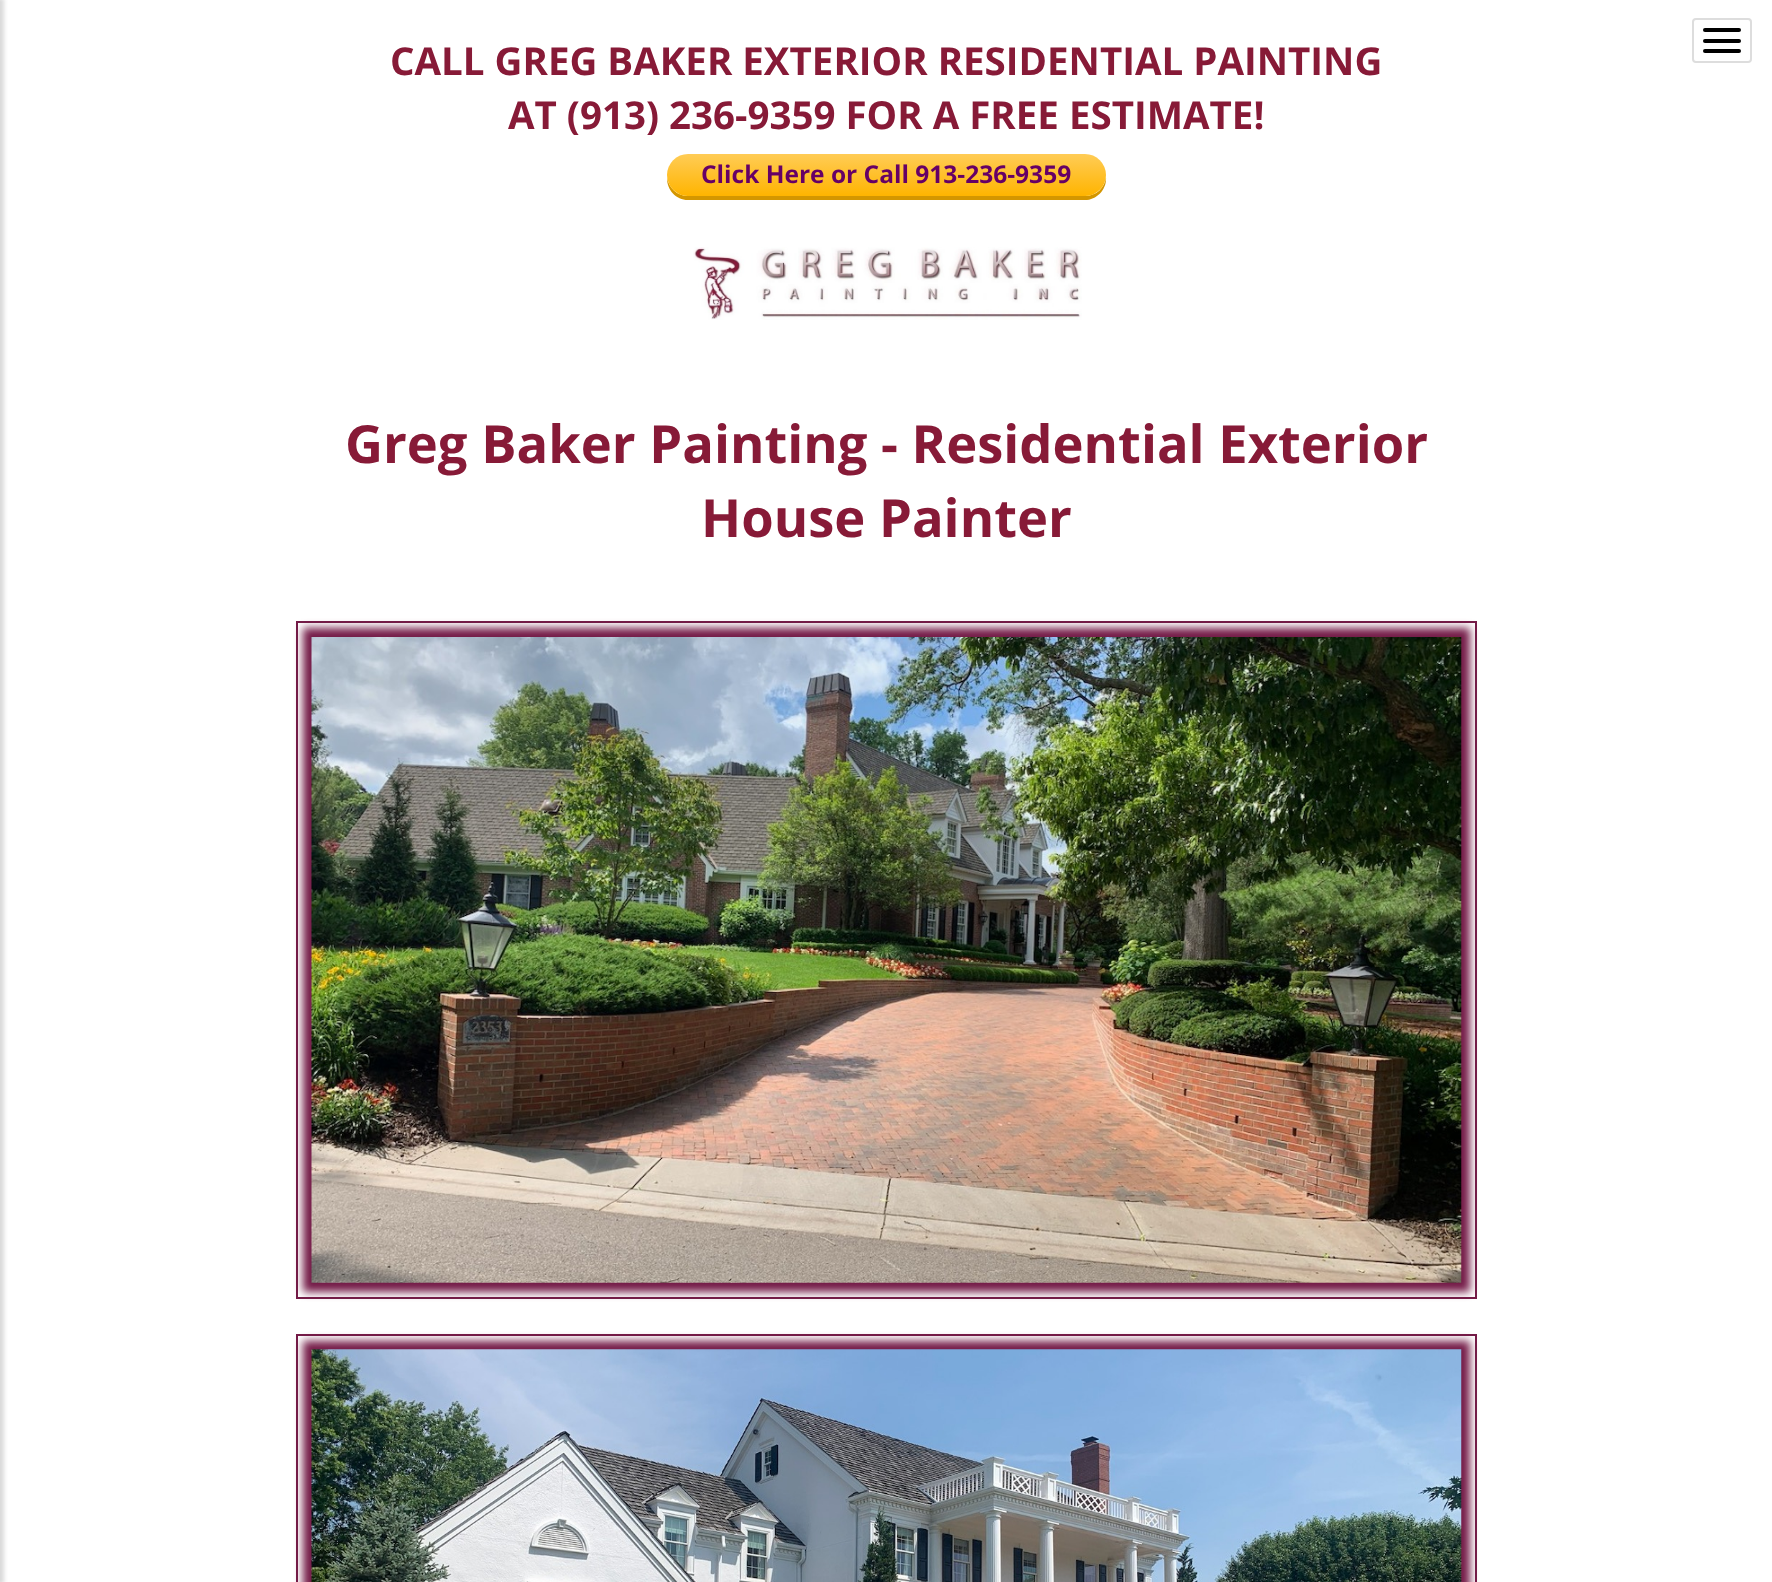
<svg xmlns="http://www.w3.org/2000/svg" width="1772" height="1582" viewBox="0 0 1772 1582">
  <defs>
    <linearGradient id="g1" gradientUnits="userSpaceOnUse" x1="886" y1="154" x2="886" y2="196"><stop offset="0" stop-color="#ffcc56"/><stop offset="1" stop-color="#ffb400"/></linearGradient>
  </defs>
  <rect width="100%" height="100%" fill="#fff"/>
  <path d="M-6 -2h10v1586H-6z" fill="#00000026" filter="blur(2px)"/>
  <rect x="1693" y="19" width="58" height="43" rx="3" fill="none" stroke="#ddd" stroke-width="2"/>
  <rect x="1703" y="28" width="38" height="4" rx="2" fill="#000"/>
  <rect x="1703" y="39" width="38" height="4" rx="2" fill="#000"/>
  <rect x="1703" y="49" width="38" height="4" rx="2" fill="#000"/>
  <image x="693" y="247" width="389" height="73" href="img/1.png"/>
  <path d="M667 178C667 190 676 200 688 200H1085C1097 200 1107 189 1106 177C1105 188 1096 196 1085 196H688C677 196 669 188 667 178Z" fill="#d49600"/>
  <rect x="667" y="154" width="439" height="42" rx="21" fill="url(#g1)"/>
  <path d="M297 622h1179v676H297z" fill="none" stroke="#741b47" stroke-width="2"/>
  <path d="M303 628h1167v664H303z" fill="#741b47" filter="blur(4.5px)"/>
  <image x="311" y="637" width="1151" height="646" href="img/2.png"/>
  <path d="M297 1335h1179v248H297z" fill="none" stroke="#741b47" stroke-width="2"/>
  <path d="M303 1341h1167v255H303z" fill="#741b47" filter="blur(4.5px)"/>
  <image x="311" y="1349" width="1151" height="233" href="img/3.png"/>
  <g font-family="Open Sans" font-size="38.5" font-weight="bold" fill="#871a37">
    <text x="390" y="75">CALL GREG BAKER EXTERIOR RESIDENTIAL PAINTING</text>
    <text x="508" y="129">AT (913) 236-9359 FOR A FREE ESTIMATE!</text>
  </g>
  <text x="701" y="183" font-family="Open Sans" font-size="24.5" font-weight="bold" fill="#606">Click Here or Call 913-236-9359</text>
  <g font-family="Open Sans" font-size="52.5" font-weight="bold" fill="#871a37">
    <text x="345" y="463">Greg Baker Painting - Residential Exterior</text>
    <text x="701" y="537">House Painter</text>
  </g>
</svg>
